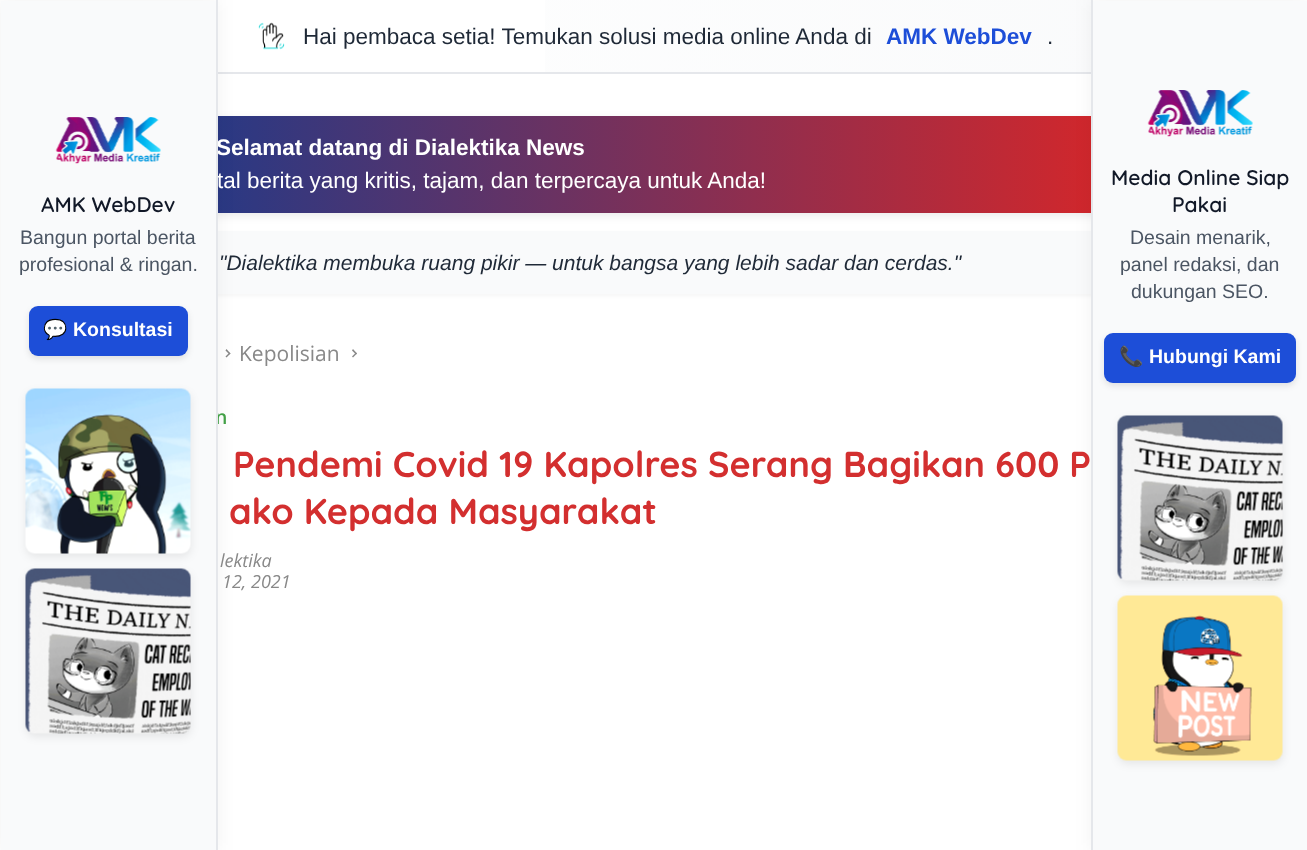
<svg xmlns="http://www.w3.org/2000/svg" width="1307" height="850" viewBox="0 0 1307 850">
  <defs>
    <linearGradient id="g1" gradientUnits="userSpaceOnUse" x1="0" y1="36" x2="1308" y2="36"><stop offset="0" stop-color="#fff"/><stop offset="1" stop-color="#f9fafb"/></linearGradient>
    <linearGradient id="g2" gradientUnits="userSpaceOnUse" x1="155" y1="164" x2="1154" y2="164"><stop offset="0" stop-color="#1e3a8a"/><stop offset="1" stop-color="#dc2626"/></linearGradient>
  </defs>
  <rect width="100%" height="100%" fill="#fff"/>
  <path d="M545 0h546v72H545z" fill="url(#g1)"/>
  <path d="M218 72h873v2H218z" fill="#e5e7eb"/>
  <image x="258" y="22" width="27" height="28" href="img/1.png"/>
  <rect x="155" y="119" width="999" height="97" rx="12" fill="#00000014" filter="blur(4.5px)"/>
  <path d="M218 116h873v97H218z" fill="url(#g2)"/>
  <rect x="155" y="233" width="999" height="63" rx="12" fill="#0000000a" filter="blur(2px)"/>
  <path d="M218 231h873v63H218z" fill="#f9fafb"/>
  <path d="M225.5 350.5L226.5 349L230.5 353.5L229.5 354.5Z" fill="#888"/>
  <path d="M225.5 356.5L229.5 352.5L230.5 353.5L226.5 357.5Z" fill="#888"/>
  <path d="M0 0h218v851H0z" fill="#0000000d" filter="blur(9px)"/>
  <path d="M1 1h215v849H1z" fill="#f9fafb"/>
  <image x="55" y="117" width="106" height="47" href="img/2.png"/>
  <rect x="29" y="309" width="159" height="50" rx="9" fill="#0000001a" filter="blur(3px)"/>
  <rect x="29" y="306" width="159" height="50" rx="9" fill="#1d4ed8"/>
  <rect x="26" y="392" width="165" height="165" rx="9" fill="#00000014" filter="blur(4.5px)"/>
  <image x="25" y="388" width="166" height="166" href="img/3.png"/>
  <rect x="26" y="572" width="165" height="165" rx="9" fill="#00000014" filter="blur(4.5px)"/>
  <image x="25" y="568" width="166" height="166" href="img/4.png"/>
  <path d="M352 350.5L353 349L357 353.5L356 354.5Z" fill="#888"/>
  <path d="M352 356.5L356 352.5L357 353.5L353 357.5Z" fill="#888"/>
  <path d="M1091 0h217v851H1091z" fill="#0000000d" filter="blur(9px)"/>
  <path d="M1093 1h214v849H1093z" fill="#f9fafb"/>
  <path d="M1091 0h2v850H1091z" fill="#e5e7eb"/>
  <image x="1147" y="90" width="106" height="47" href="img/2.png"/>
  <rect x="1104" y="336" width="192" height="50" rx="9" fill="#0000001a" filter="blur(3px)"/>
  <rect x="1104" y="333" width="192" height="50" rx="9" fill="#1d4ed8"/>
  <rect x="1118" y="419" width="165" height="165" rx="9" fill="#00000014" filter="blur(4.5px)"/>
  <image x="1117" y="415" width="166" height="166" href="img/5.png"/>
  <rect x="1118" y="599" width="165" height="165" rx="9" fill="#00000014" filter="blur(4.5px)"/>
  <image x="1117" y="595" width="166" height="166" href="img/6.png"/>
  <text x="303" y="44" font-family="Liberation Sans" font-size="22.5" fill="#1f2937">Hai pembaca setia! Temukan solusi media online Anda di</text>
  <text x="886" y="44" font-family="Liberation Sans" font-size="22.5" font-weight="bold" fill="#1d4ed8">AMK WebDev</text>
  <text x="1047" y="44" font-family="Liberation Sans" font-size="22.5" fill="#1f2937">.</text>
  <text x="41" y="212" font-family="Quicksand" font-size="21" font-weight="600" fill="#111827">AMK WebDev</text>
  <g font-family="Liberation Sans" font-size="19.5" fill="#4b5563">
    <text x="20" y="244">Bangun portal berita</text>
    <text x="19" y="271">profesional &amp; ringan.</text>
  </g>
  <text x="43" y="336" font-family="Noto Color Emoji" font-size="19.5" font-weight="bold" fill="#fff">💬</text>
  <text x="73" y="336" font-family="Liberation Sans" font-size="19.5" font-weight="bold" fill="#fff">Konsultasi</text>
  <text x="216" y="155" font-family="Liberation Sans" font-size="22.5" font-weight="bold" fill="#fff">Selamat datang di Dialektika News</text>
  <text x="217" y="188" font-family="Liberation Sans" font-size="22.5" fill="#fff">tal berita yang kritis, tajam, dan terpercaya untuk Anda!</text>
  <text x="219" y="270" font-family="Liberation Sans" font-size="21" font-style="italic" fill="#1f2937">"Dialektika membuka ruang pikir — untuk bangsa yang lebih sadar dan cerdas."</text>
  <text x="239" y="361" font-family="Open Sans" font-size="21" fill="#888">Kepolisian</text>
  <text x="215" y="424" font-family="Open Sans" font-size="19.5" font-weight="600" fill="#43a047">n</text>
  <path d="M216 0h2v850H216z" fill="#e5e7eb"/>
  <g font-family="Quicksand" font-size="36" font-weight="bold" fill="#d32f2f">
    <text x="233" y="477">Pendemi Covid 19 Kapolres Serang Bagikan 600 P</text>
    <text x="229" y="524">ako Kepada Masyarakat</text>
  </g>
  <g font-family="Open Sans" font-size="18" font-style="italic" fill="#888">
    <text x="220" y="567">lektika</text>
    <text x="222" y="588">12, 2021</text>
  </g>
  <g font-family="Quicksand" font-size="21" font-weight="600" fill="#111827">
    <text x="1111" y="185">Media Online Siap</text>
    <text x="1172" y="212">Pakai</text>
  </g>
  <g font-family="Liberation Sans" font-size="19.5" fill="#4b5563">
    <text x="1130" y="244">Desain menarik,</text>
    <text x="1120" y="271">panel redaksi, dan</text>
    <text x="1131" y="298">dukungan SEO.</text>
  </g>
  <text x="1119" y="363" font-family="Noto Color Emoji" font-size="19.5" font-weight="bold" fill="#fff">📞</text>
  <text x="1149" y="363" font-family="Liberation Sans" font-size="19.5" font-weight="bold" fill="#fff">Hubungi Kami</text>
</svg>
